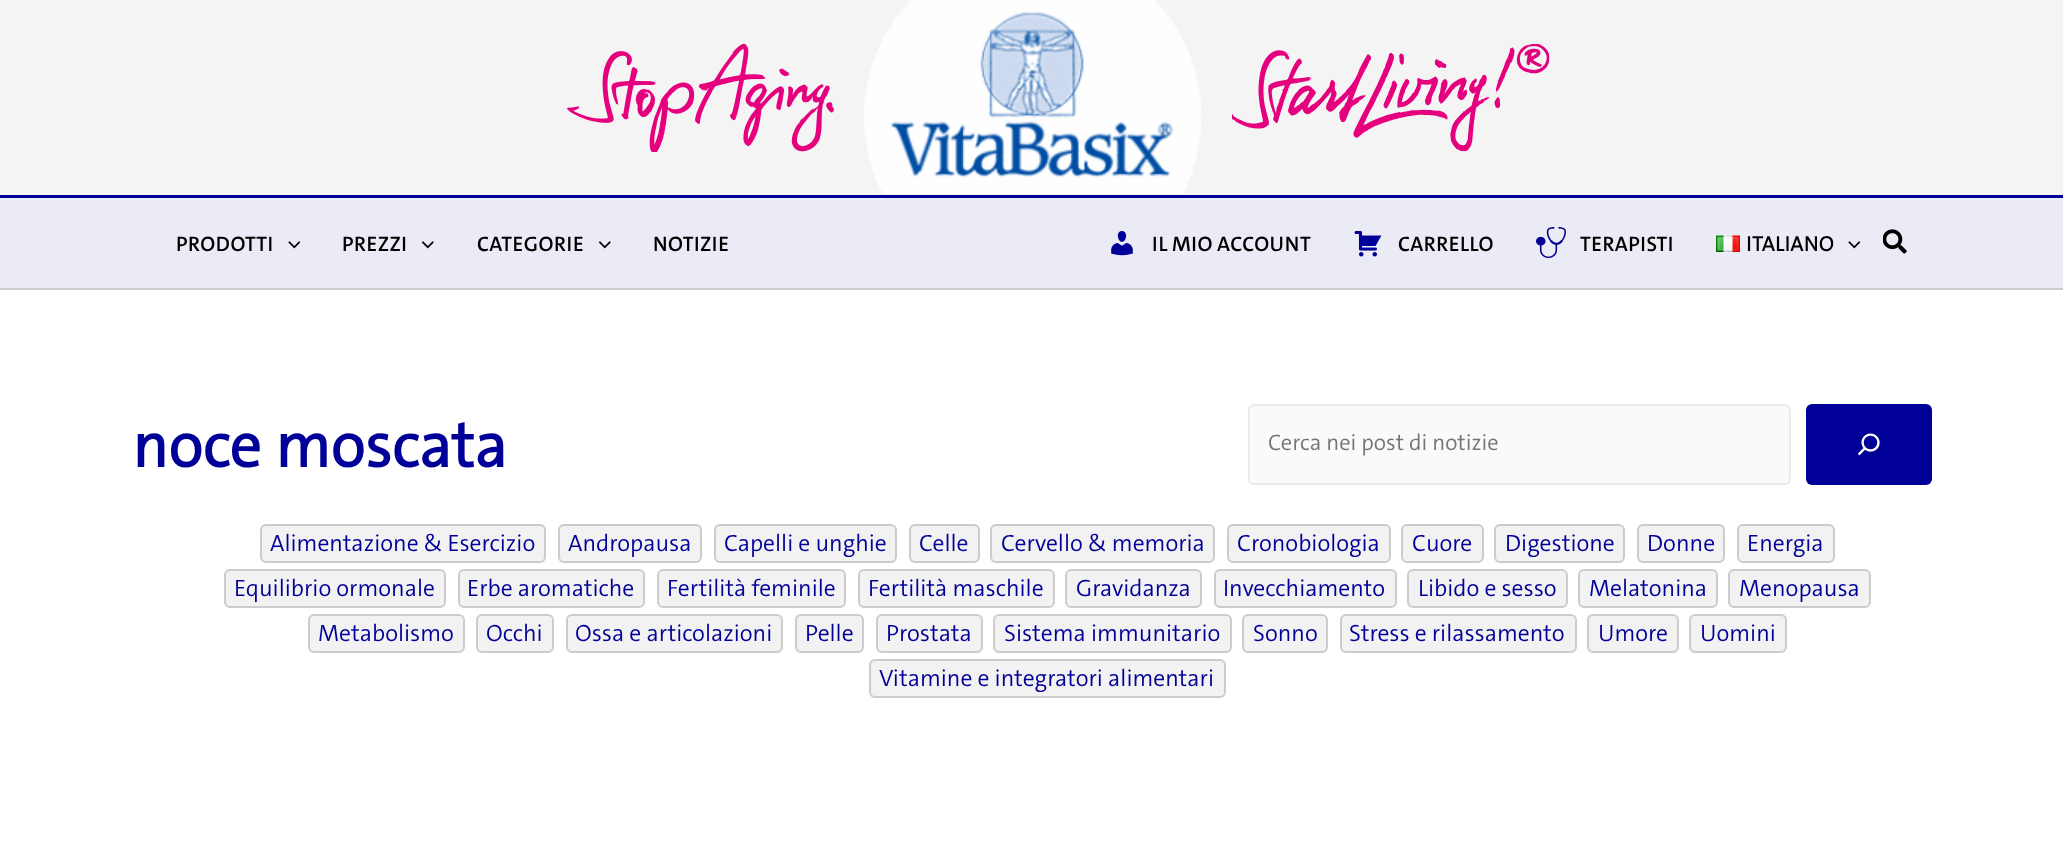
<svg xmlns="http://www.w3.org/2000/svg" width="2063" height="849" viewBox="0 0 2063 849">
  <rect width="100%" height="100%" fill="#fff"/>
  <path d="M0 0h2063v195H0z" fill="#f4f4f4"/>
  <path d="M0 195h2063v3H0z" fill="#009"/>
  <image x="567" y="44" width="267" height="108" href="img/1.png"/>
  <image x="864" y="0" width="338" height="194" href="img/2.png"/>
  <image x="1232" y="44" width="318" height="108" href="img/3.png"/>
  <path d="M0 198h2063v90H0z" fill="#eaebf4"/>
  <path d="M0 288h2063v2H0z" fill="#cccccb"/>
  <image x="288" y="241" width="12" height="8" href="img/4.png"/>
  <image x="422" y="241" width="12" height="8" href="img/5.png"/>
  <image x="599" y="241" width="12" height="8" href="img/5.png"/>
  <image x="1111" y="231" width="22" height="25" href="img/6.png"/>
  <image x="1354" y="231" width="28" height="26" href="img/7.png"/>
  <image x="1536" y="227" width="30" height="31" href="img/8.png"/>
  <image x="1716" y="235" width="24" height="17" href="img/9.png"/>
  <image x="1848" y="241" width="13" height="8" href="img/10.png"/>
  <image x="1883" y="229" width="24" height="25" href="img/11.png"/>
  <rect x="1249" y="405" width="541" height="79" rx="5" fill="#fafafa" stroke="#eaeaea" stroke-width="2"/>
  <rect x="1806" y="404" width="126" height="81" rx="6" fill="#009"/>
  <image x="1857" y="433" width="23" height="23" href="img/12.png"/>
  <rect x="261" y="525" width="284" height="37" rx="5" fill="#f2f2f2" stroke="#ccc" stroke-width="2"/>
  <rect x="559" y="525" width="142" height="37" rx="5" fill="#f2f2f2" stroke="#ccc" stroke-width="2"/>
  <rect x="715" y="525" width="181" height="37" rx="5" fill="#f2f2f2" stroke="#ccc" stroke-width="2"/>
  <rect x="910" y="525" width="69" height="37" rx="5" fill="#f2f2f2" stroke="#ccc" stroke-width="2"/>
  <rect x="991" y="525" width="223" height="37" rx="5" fill="#f2f2f2" stroke="#ccc" stroke-width="2"/>
  <rect x="1228" y="525" width="162" height="37" rx="5" fill="#f2f2f2" stroke="#ccc" stroke-width="2"/>
  <rect x="1402" y="525" width="81" height="37" rx="5" fill="#f2f2f2" stroke="#ccc" stroke-width="2"/>
  <rect x="1495" y="525" width="129" height="37" rx="5" fill="#f2f2f2" stroke="#ccc" stroke-width="2"/>
  <rect x="1638" y="525" width="86" height="37" rx="5" fill="#f2f2f2" stroke="#ccc" stroke-width="2"/>
  <rect x="1738" y="525" width="96" height="37" rx="5" fill="#f2f2f2" stroke="#ccc" stroke-width="2"/>
  <rect x="225" y="570" width="220" height="37" rx="5" fill="#f2f2f2" stroke="#ccc" stroke-width="2"/>
  <rect x="459" y="570" width="185" height="37" rx="5" fill="#f2f2f2" stroke="#ccc" stroke-width="2"/>
  <rect x="658" y="570" width="187" height="37" rx="5" fill="#f2f2f2" stroke="#ccc" stroke-width="2"/>
  <rect x="859" y="570" width="195" height="37" rx="5" fill="#f2f2f2" stroke="#ccc" stroke-width="2"/>
  <rect x="1066" y="570" width="135" height="37" rx="5" fill="#f2f2f2" stroke="#ccc" stroke-width="2"/>
  <rect x="1215" y="570" width="181" height="37" rx="5" fill="#f2f2f2" stroke="#ccc" stroke-width="2"/>
  <rect x="1408" y="570" width="159" height="37" rx="5" fill="#f2f2f2" stroke="#ccc" stroke-width="2"/>
  <rect x="1579" y="570" width="138" height="37" rx="5" fill="#f2f2f2" stroke="#ccc" stroke-width="2"/>
  <rect x="1729" y="570" width="141" height="37" rx="5" fill="#f2f2f2" stroke="#ccc" stroke-width="2"/>
  <rect x="309" y="615" width="155" height="37" rx="5" fill="#f2f2f2" stroke="#ccc" stroke-width="2"/>
  <rect x="477" y="615" width="76" height="37" rx="5" fill="#f2f2f2" stroke="#ccc" stroke-width="2"/>
  <rect x="567" y="615" width="215" height="37" rx="5" fill="#f2f2f2" stroke="#ccc" stroke-width="2"/>
  <rect x="796" y="615" width="67" height="37" rx="5" fill="#f2f2f2" stroke="#ccc" stroke-width="2"/>
  <rect x="877" y="615" width="105" height="37" rx="5" fill="#f2f2f2" stroke="#ccc" stroke-width="2"/>
  <rect x="994" y="615" width="237" height="37" rx="5" fill="#f2f2f2" stroke="#ccc" stroke-width="2"/>
  <rect x="1243" y="615" width="84" height="37" rx="5" fill="#f2f2f2" stroke="#ccc" stroke-width="2"/>
  <rect x="1341" y="615" width="235" height="37" rx="5" fill="#f2f2f2" stroke="#ccc" stroke-width="2"/>
  <rect x="1588" y="615" width="90" height="37" rx="5" fill="#f2f2f2" stroke="#ccc" stroke-width="2"/>
  <rect x="1690" y="615" width="96" height="37" rx="5" fill="#f2f2f2" stroke="#ccc" stroke-width="2"/>
  <rect x="870" y="660" width="355" height="37" rx="5" fill="#f2f2f2" stroke="#ccc" stroke-width="2"/>
  <g font-family="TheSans" font-size="21" font-weight="600" fill="#000">
    <text x="176" y="251">PRODOTTI</text>
    <text x="342" y="251">PREZZI</text>
    <text x="477" y="251">CATEGORIE</text>
    <text x="653" y="251">NOTIZIE</text>
    <text x="1152" y="251">IL MIO ACCOUNT</text>
    <text x="1398" y="251">CARRELLO</text>
    <text x="1580" y="251">TERAPISTI</text>
  </g>
  <text x="1746" y="251" font-family="TheSans" font-size="21" font-weight="bold" fill="#000">ITALIANO</text>
  <text x="132" y="467" font-family="TheSans" font-size="63" font-weight="bold" fill="#009">noce moscata</text>
  <text x="1268" y="450" font-family="TheSans" font-size="22.5" font-weight="300" fill="#757575">Cerca nei post di notizie</text>
  <g font-family="TheSans" font-size="23.6" font-weight="300" fill="#009">
    <text x="270" y="551">Alimentazione &amp; Esercizio</text>
    <text x="568" y="551">Andropausa</text>
    <text x="724" y="551">Capelli e unghie</text>
    <text x="919" y="551">Celle</text>
    <text x="1001" y="551">Cervello &amp; memoria</text>
    <text x="1237" y="551">Cronobiologia</text>
    <text x="1412" y="551">Cuore</text>
    <text x="1505" y="551">Digestione</text>
    <text x="1647" y="551">Donne</text>
    <text x="1747" y="551">Energia</text>
    <text x="234" y="596">Equilibrio ormonale</text>
    <text x="467" y="596">Erbe aromatiche</text>
    <text x="667" y="596">Fertilità feminile</text>
    <text x="868" y="596">Fertilità maschile</text>
    <text x="1076" y="596">Gravidanza</text>
    <text x="1223" y="596">Invecchiamento</text>
    <text x="1418" y="596">Libido e sesso</text>
    <text x="1589" y="596">Melatonina</text>
    <text x="1739" y="596">Menopausa</text>
    <text x="318" y="641">Metabolismo</text>
    <text x="486" y="641">Occhi</text>
    <text x="575" y="641">Ossa e articolazioni</text>
    <text x="805" y="641">Pelle</text>
    <text x="886" y="641">Prostata</text>
    <text x="1004" y="641">Sistema immunitario</text>
    <text x="1253" y="641">Sonno</text>
    <text x="1349" y="641">Stress e rilassamento</text>
    <text x="1598" y="641">Umore</text>
    <text x="1700" y="641">Uomini</text>
    <text x="879" y="686">Vitamine e integratori alimentari</text>
  </g>
</svg>
